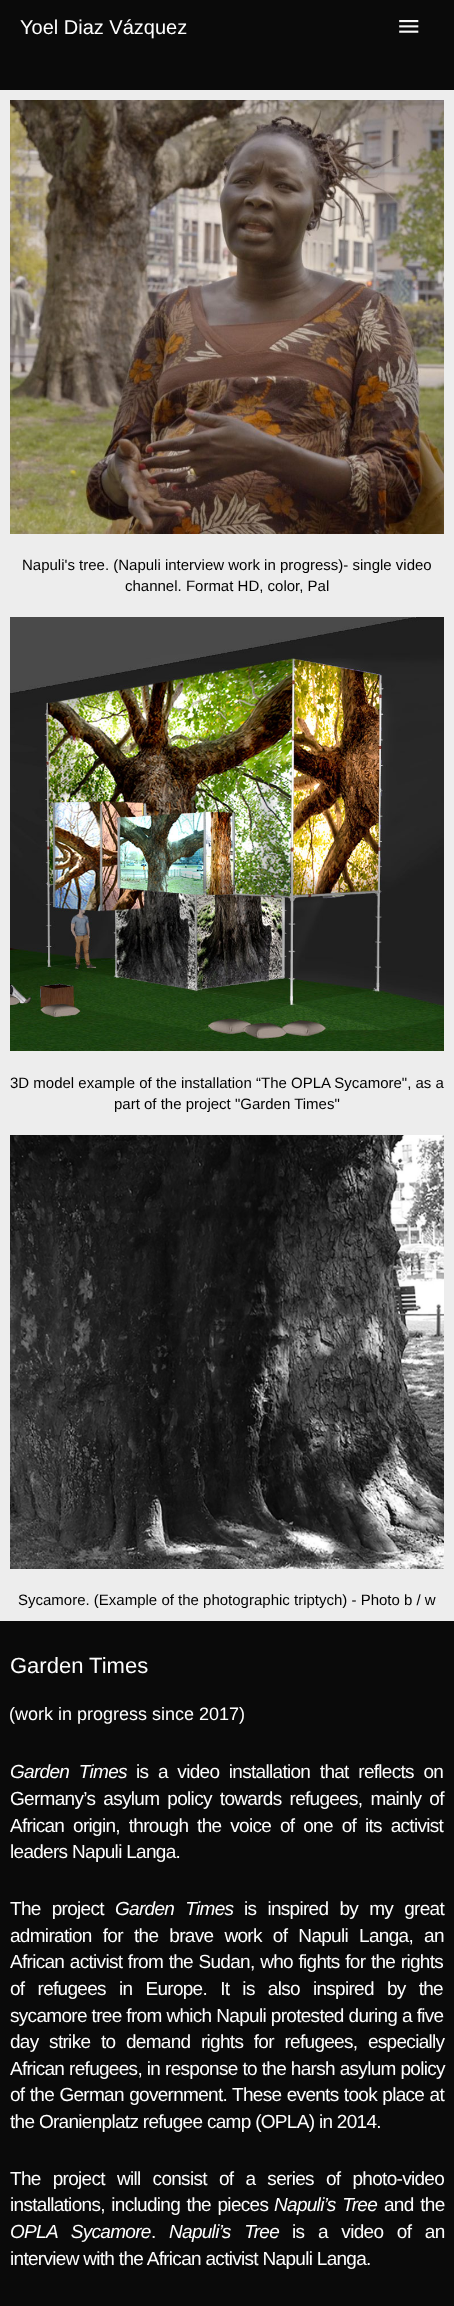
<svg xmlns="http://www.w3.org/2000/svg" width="454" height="2306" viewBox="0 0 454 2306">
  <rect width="100%" height="100%" fill="#0a0a0a"/>
  <image x="399" y="20" width="20" height="13" href="img/1.png"/>
  <path d="M0 90h454v1531H0z" fill="#ededed"/>
  <image x="10" y="100" width="434" height="434" href="img/2.png"/>
  <image x="10" y="617" width="434" height="434" href="img/3.png"/>
  <image x="10" y="1135" width="434" height="434" href="img/4.png"/>
  <text x="20" y="34" font-family="Liberation Sans" font-size="20" fill="#fff">Yoel Diaz Vázquez</text>
  <g font-family="Liberation Sans" font-size="15" fill="#000">
    <text x="22" y="570">Napuli's tree. (Napuli interview work in progress)- single video</text>
    <text x="125" y="591">channel. Format HD, color, Pal</text>
    <text x="10" y="1088">3D model example of the installation “The OPLA Sycamore", as a</text>
    <text x="114" y="1109">part of the project "Garden Times"</text>
    <text x="18" y="1605">Sycamore. (Example of the photographic triptych) - Photo b / w</text>
  </g>
  <text x="10" y="1673" font-family="Liberation Sans" font-size="22" fill="#fff">Garden Times</text>
  <text x="9" y="1720" font-family="Liberation Sans" font-size="18" fill="#fff">(work in progress since 2017)</text>
  <text x="10" y="1778" word-spacing="5" font-family="Liberation Sans" font-size="19" font-style="italic" letter-spacing="-0.7" fill="#fff">Garden Times</text>
  <g font-family="Liberation Sans" font-size="19" letter-spacing="-0.7" fill="#fff">
    <text x="136" y="1778" word-spacing="5">is a video installation that reflects on</text>
    <text x="10" y="1805" word-spacing="3.5">Germany’s asylum policy towards refugees, mainly of</text>
    <text x="10" y="1832" word-spacing="4.25">African origin, through the voice of one of its activist</text>
    <text x="10" y="1858">leaders Napuli Langa.</text>
    <text x="10" y="1915" word-spacing="6.5">The project</text>
  </g>
  <text x="115" y="1915" word-spacing="6.5" font-family="Liberation Sans" font-size="19" font-style="italic" letter-spacing="-0.7" fill="#fff">Garden Times</text>
  <g font-family="Liberation Sans" font-size="19" letter-spacing="-0.7" fill="#fff">
    <text x="244" y="1915" word-spacing="6.5">is inspired by my great</text>
    <text x="10" y="1942" word-spacing="6.5">admiration for the brave work of Napuli Langa, an</text>
    <text x="10" y="1968" word-spacing="1">African activist from the Sudan, who fights for the rights</text>
    <text x="10" y="1995" word-spacing="8.5">of refugees in Europe. It is also inspired by the</text>
    <text x="10" y="2022" word-spacing="0.25">sycamore tree from which Napuli protested during a five</text>
    <text x="10" y="2048" word-spacing="6">day strike to demand rights for refugees, especially</text>
    <text x="10" y="2075" word-spacing="0.25">African refugees, in response to the harsh asylum policy</text>
    <text x="10" y="2101" word-spacing="0.75">of the German government. These events took place at</text>
    <text x="10" y="2128">the Oranienplatz refugee camp (OPLA) in 2014.</text>
    <text x="10" y="2185" word-spacing="7.5">The project will consist of a series of photo-video</text>
    <text x="10" y="2211" word-spacing="2">installations, including the pieces</text>
  </g>
  <text x="274" y="2211" word-spacing="2" font-family="Liberation Sans" font-size="19" font-style="italic" letter-spacing="-0.7" fill="#fff">Napuli’s Tree</text>
  <text x="384" y="2211" word-spacing="2" font-family="Liberation Sans" font-size="19" letter-spacing="-0.7" fill="#fff">and the</text>
  <text x="10" y="2238" word-spacing="9" font-family="Liberation Sans" font-size="19" font-style="italic" letter-spacing="-0.7" fill="#fff">OPLA Sycamore</text>
  <text x="151" y="2238" font-family="Liberation Sans" font-size="19" letter-spacing="-0.7" fill="#fff">.</text>
  <text x="169" y="2238" word-spacing="9" font-family="Liberation Sans" font-size="19" font-style="italic" letter-spacing="-0.7" fill="#fff">Napuli’s Tree</text>
  <g font-family="Liberation Sans" font-size="19" letter-spacing="-0.7" fill="#fff">
    <text x="292" y="2238" word-spacing="9">is a video of an</text>
    <text x="10" y="2265">interview with the African activist Napuli Langa.</text>
  </g>
</svg>
